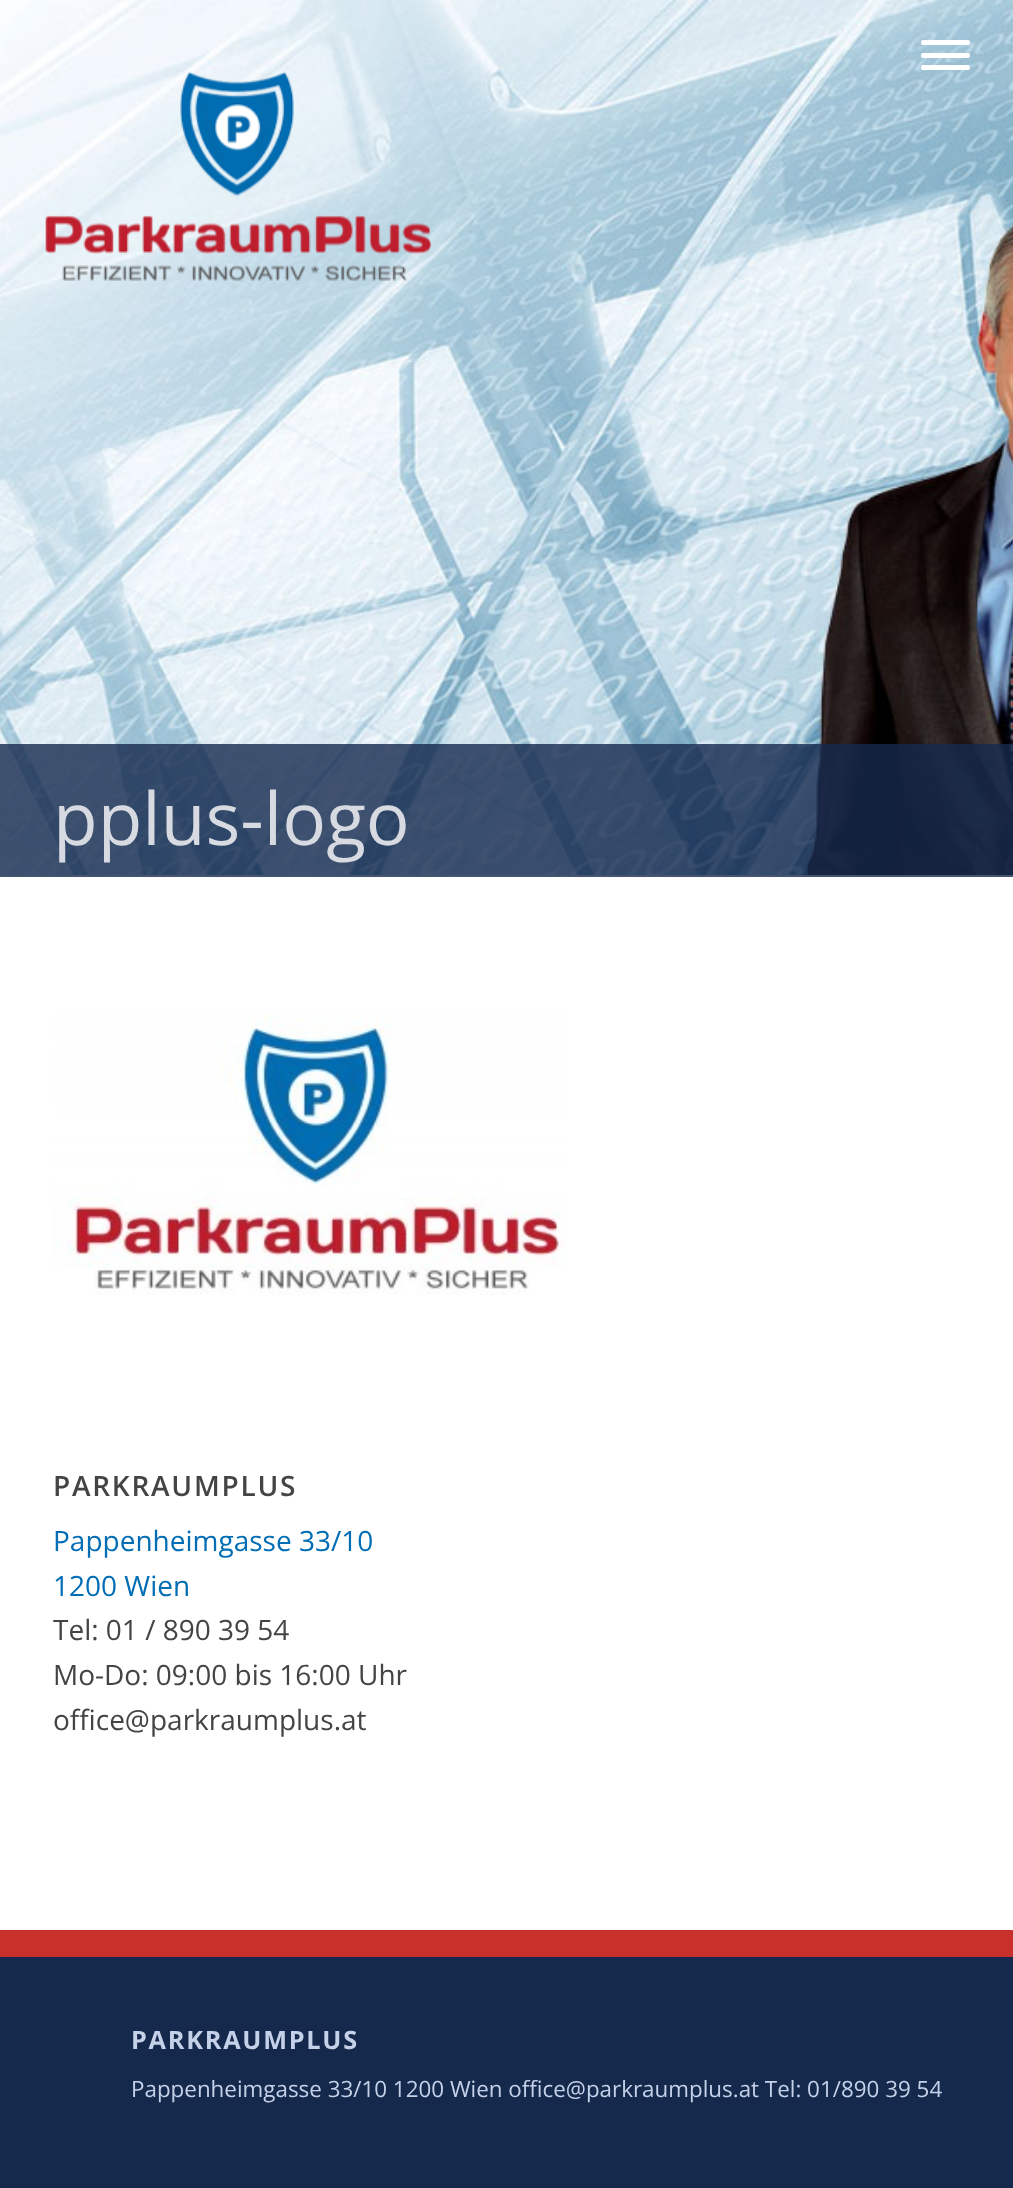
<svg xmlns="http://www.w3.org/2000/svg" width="1013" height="2188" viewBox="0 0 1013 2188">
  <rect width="100%" height="100%" fill="#fff"/>
  <image x="0" y="0" width="1013" height="875" href="img/1.png"/>
  <image x="801" y="210" width="212" height="665" href="img/2.png"/>
  <rect x="921" y="40" width="49" height="5" rx="2" fill="#fff"/>
  <rect x="921" y="53" width="49" height="5" rx="2" fill="#fff"/>
  <rect x="921" y="65" width="49" height="5" rx="2" fill="#fff"/>
  <image x="45" y="71" width="387" height="210" href="img/3.png"/>
  <path d="M0 744h1013v133H0z" fill="#15294dcc"/>
  <image x="53" y="1014" width="515" height="281" href="img/4.png"/>
  <path d="M0 1957h1013v231H0z" fill="#15294d"/>
  <path d="M0 1930h1013v27H0z" fill="#c9302c"/>
  <text x="53" y="845" font-family="Open Sans" font-size="73" fill="#d7dbe1">pplus-logo</text>
  <text x="53" y="1496" font-family="Open Sans" font-size="28" font-weight="600" letter-spacing="1.75" fill="#444">PARKRAUMPLUS</text>
  <g font-family="Open Sans" font-size="28" fill="#006db5">
    <text x="53" y="1551">Pappenheimgasse 33/10</text>
    <text x="53" y="1596">1200 Wien</text>
  </g>
  <g font-family="Open Sans" font-size="28" fill="#444">
    <text x="53" y="1640">Tel: 01 / 890 39 54</text>
    <text x="53" y="1685">Mo-Do: 09:00 bis 16:00 Uhr</text>
    <text x="53" y="1730">office@parkraumplus.at</text>
  </g>
  <text x="131" y="2049" font-family="Open Sans" font-size="25.25" font-weight="bold" letter-spacing="1.75" fill="#c5d1e8">PARKRAUMPLUS</text>
  <text x="131" y="2097" font-family="Open Sans" font-size="22.4" fill="#c5d1e8">Pappenheimgasse 33/10 1200 Wien office@parkraumplus.at Tel: 01/890 39 54</text>
</svg>
